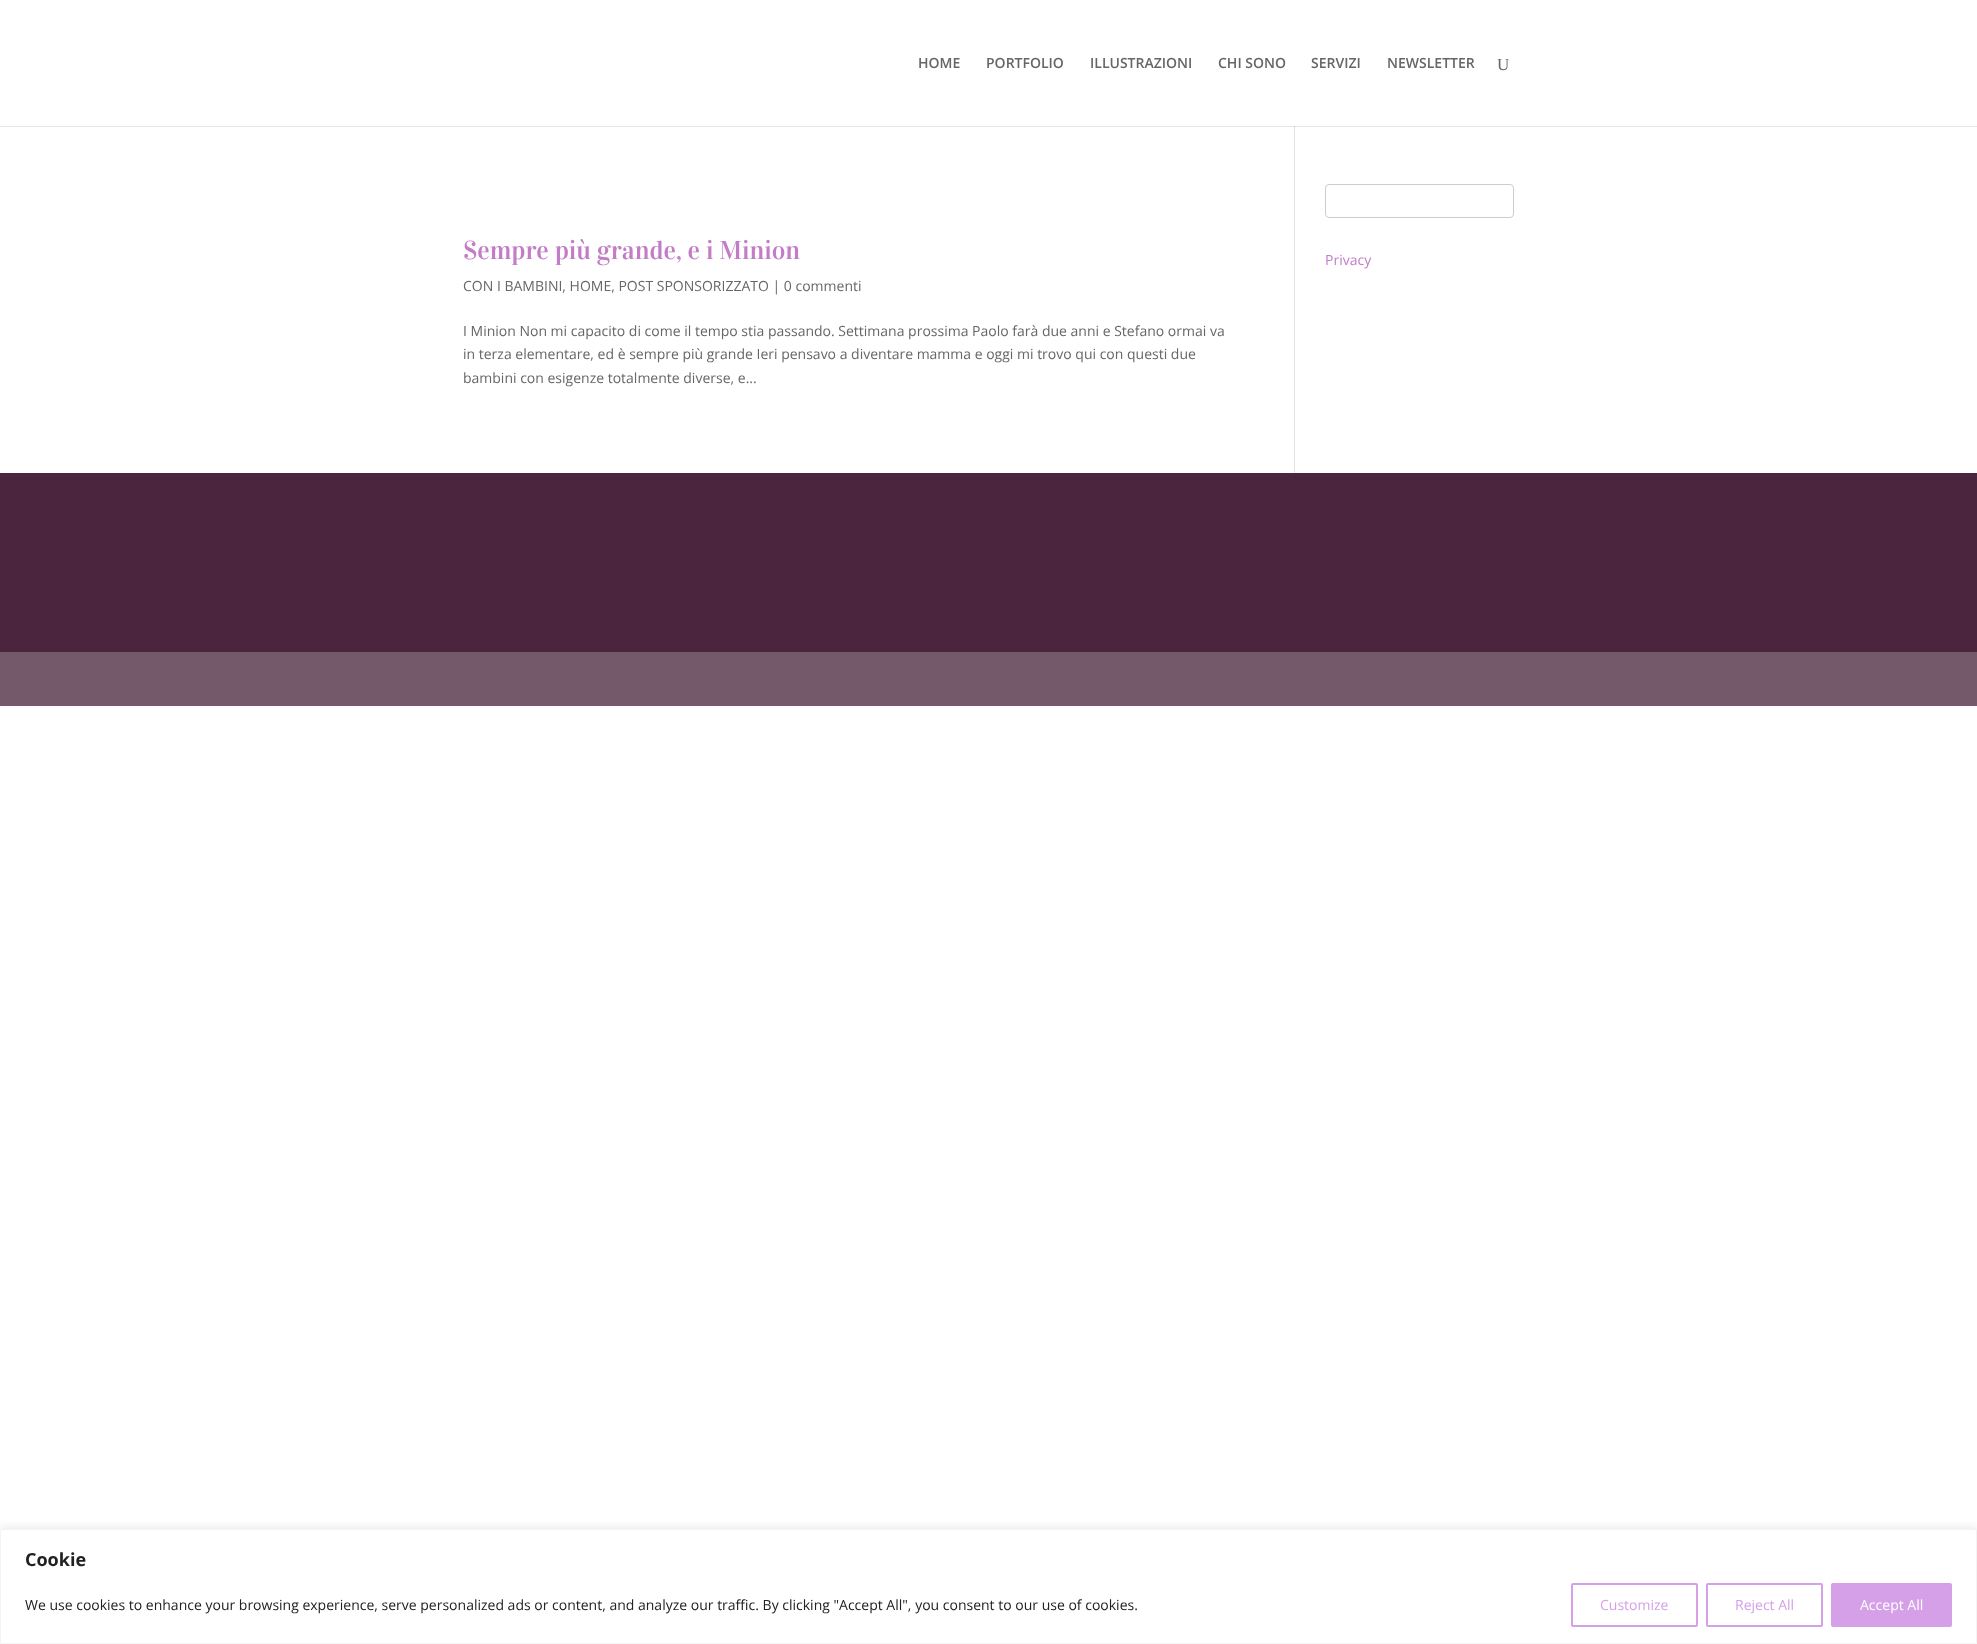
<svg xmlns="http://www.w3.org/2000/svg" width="1977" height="1644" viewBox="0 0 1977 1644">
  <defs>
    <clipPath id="clip1"><path d="M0 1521h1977v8H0z"/></clipPath>
  </defs>
  <rect width="100%" height="100%" fill="#fff"/>
  <path d="M0 126h1977v1H0z" fill="#e6e6e6"/>
  <path d="M1294 126h1v347H1294z" fill="#e2e2e2"/>
  <path d="M1294 126h1v1H1294z" fill="#cbcbcb"/>
  <rect x="1325.5" y="184.5" width="188" height="33" rx="3.5" fill="none" stroke="#ccc"/>
  <path d="M0 473h1977v179H0z" fill="#4b253e"/>
  <path d="M0 652h1977v54H0z" fill="#73596a"/>
  <g clip-path="url(#clip1)">
    <path d="M0 1528h1977v115H0z" fill="#acabab4d" filter="blur(5px)"/>
  </g>
  <path d="M0.5 1529.5h1976v114H0.5z" fill="none" stroke="#f4f4f4"/>
  <rect x="1572" y="1584" width="125" height="42" rx="1" fill="none" stroke="#d5a0e8" stroke-width="2"/>
  <rect x="1707" y="1584" width="115" height="42" rx="1" fill="none" stroke="#d5a0e8" stroke-width="2"/>
  <rect x="1832" y="1584" width="119" height="42" rx="1" fill="#d5a0e8" stroke="#d5a0e8" stroke-width="2"/>
  <g font-family="Open Sans" font-size="14" font-weight="600" fill="#666">
    <text x="918" y="68">HOME</text>
    <text x="986" y="68">PORTFOLIO</text>
    <text x="1090" y="68">ILLUSTRAZIONI</text>
    <text x="1218" y="68">CHI SONO</text>
    <text x="1311" y="68">SERVIZI</text>
    <text x="1387" y="68">NEWSLETTER</text>
  </g>
  <text x="1497" y="70" font-family="Liberation Serif" font-size="17" fill="#666">U</text>
  <text x="463" y="259" font-family="Vidaloka" font-size="26" fill="#c37cc6">Sempre più grande, e i Minion</text>
  <g font-family="Open Sans" font-size="14" fill="#666">
    <text x="463" y="291">CON I BAMBINI, HOME, POST SPONSORIZZATO | 0 commenti</text>
    <text x="463" y="336">I Minion Non mi capacito di come il tempo stia passando. Settimana prossima Paolo farà due anni e Stefano ormai va</text>
    <text x="463" y="359">in terza elementare, ed è sempre più grande Ieri pensavo a diventare mamma e oggi mi trovo qui con questi due</text>
    <text x="463" y="383">bambini con esigenze totalmente diverse, e...</text>
  </g>
  <text x="1325" y="265" font-family="Open Sans" font-size="14" fill="#c37cc6">Privacy</text>
  <text x="25" y="1566" font-family="Open Sans" font-size="18" font-weight="bold" fill="#212121">Cookie</text>
  <text x="25" y="1610" font-family="Open Sans" font-size="14" fill="#212121">We use cookies to enhance your browsing experience, serve personalized ads or content, and analyze our traffic. By clicking "Accept All", you consent to our use of cookies.</text>
  <g font-family="Open Sans" font-size="14" fill="#d5a0e8">
    <text x="1600" y="1610">Customize</text>
    <text x="1735" y="1610">Reject All</text>
  </g>
  <text x="1860" y="1610" font-family="Open Sans" font-size="14" fill="#fff">Accept All</text>
</svg>
